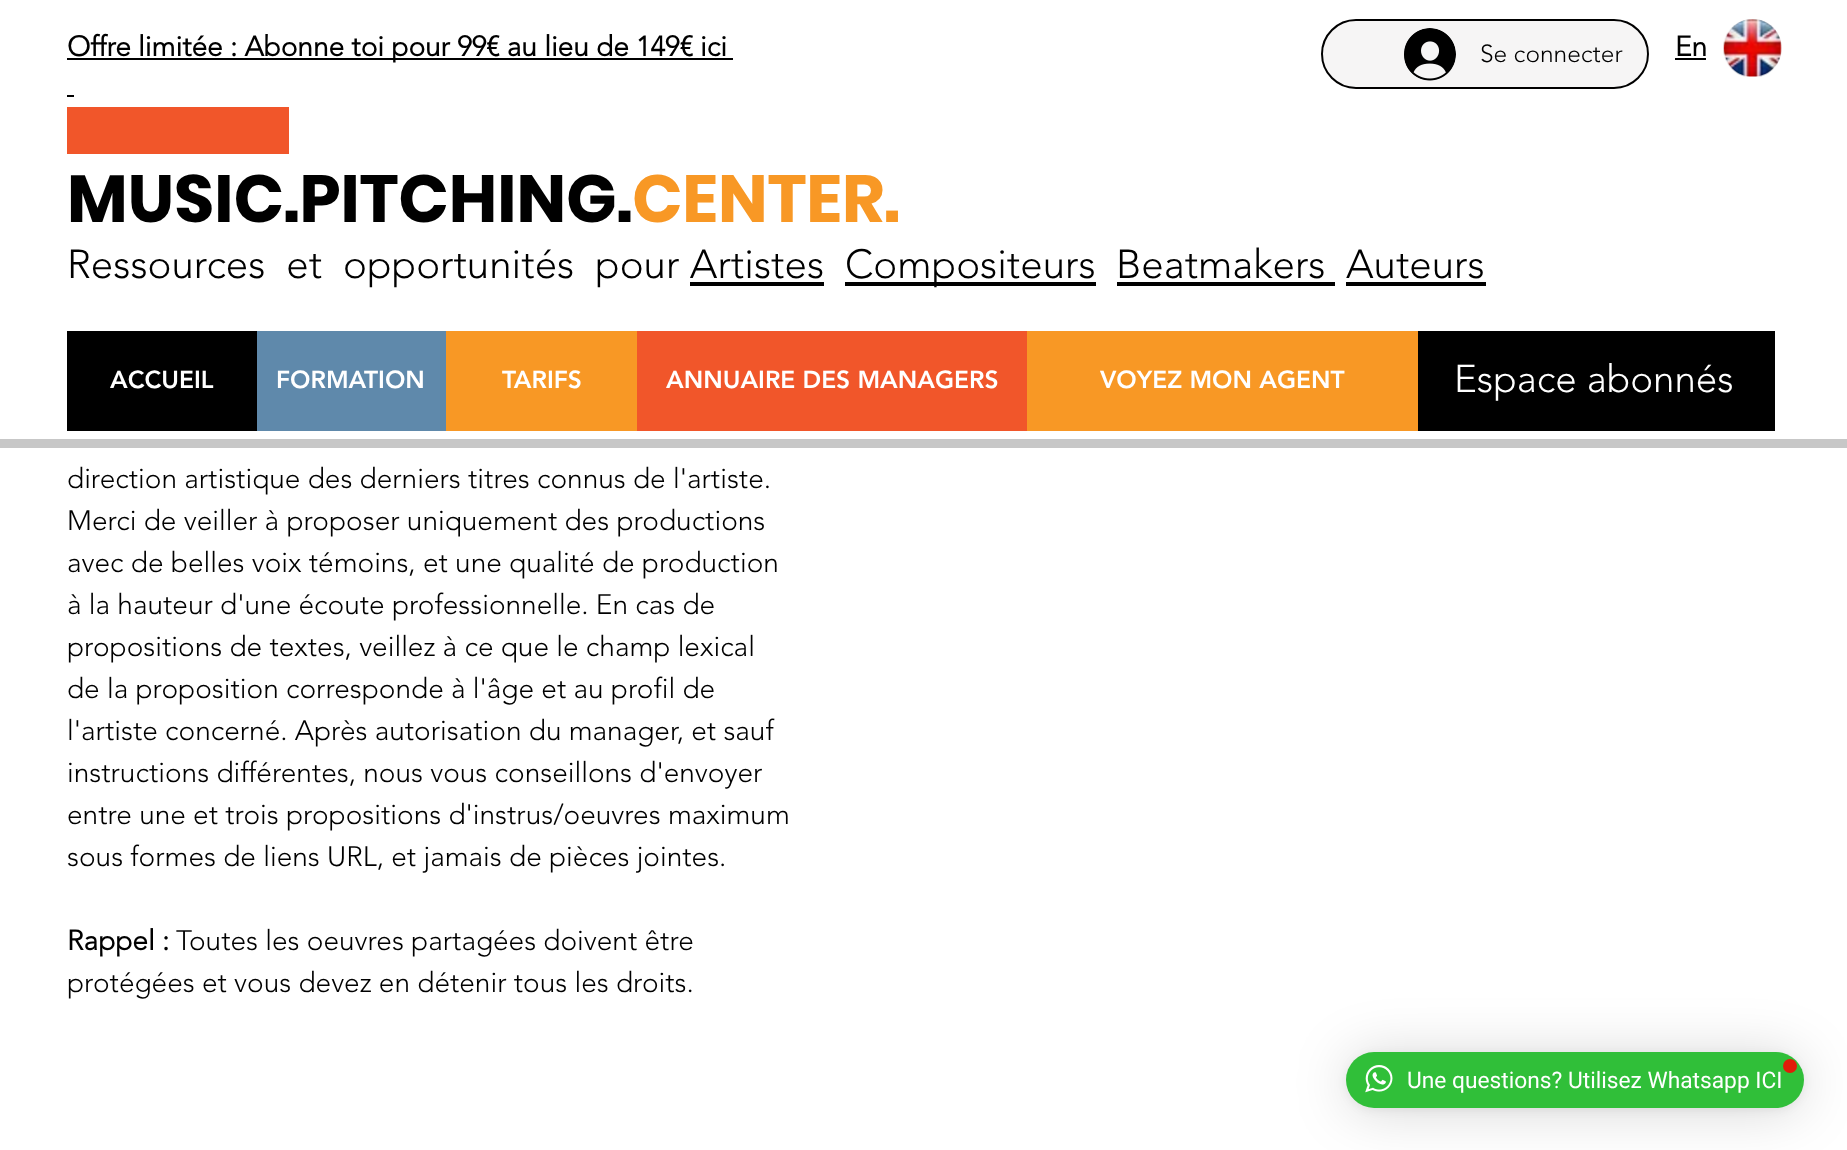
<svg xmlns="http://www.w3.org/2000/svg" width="1847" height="1150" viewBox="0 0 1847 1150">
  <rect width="100%" height="100%" fill="#fff"/>
  <path d="M67 58h666v2H67z" fill="#000"/>
  <path d="M67 95h7v2H67z" fill="#000"/>
  <rect x="1322" y="20" width="326" height="68" rx="34" fill="#f6f5f5" stroke="#000" stroke-width="2"/>
  <image x="1404" y="28" width="52" height="53" href="img/1.png"/>
  <path d="M1675 58h31v2H1675z" fill="#000"/>
  <image x="1723" y="19" width="59" height="58" href="img/2.png"/>
  <path d="M67 107h222v47H67z" fill="#f1562a"/>
  <path d="M690 282h134v4H690z" fill="#000"/>
  <path d="M845 282h251v4H845z" fill="#000"/>
  <path d="M1117 282h218v4H1117z" fill="#000"/>
  <path d="M1346 282h140v4H1346z" fill="#000"/>
  <path d="M67 331h190v100H67z" fill="#000"/>
  <path d="M257 331h189v100H257z" fill="#5f89ab"/>
  <path d="M446 331h191v100H446z" fill="#f89825"/>
  <path d="M637 331h390v100H637z" fill="#f1562a"/>
  <path d="M1027 331h391v100H1027z" fill="#f89825"/>
  <path d="M1418 331h357v100H1418z" fill="#000"/>
  <path d="M0 439h1847v9H0z" fill="#c7c7c7"/>
  <rect x="1346" y="1055" width="458" height="56" rx="28" fill="#00000029" filter="blur(28px)"/>
  <rect x="1346" y="1054" width="458" height="56" rx="28" fill="#0000000f" filter="blur(5px)"/>
  <rect x="1346" y="1052" width="458" height="56" rx="28" fill="#30bf39"/>
  <image x="1365" y="1065" width="28" height="28" href="img/3.png"/>
  <circle cx="1790" cy="1066" r="7" fill="#e01d09"/>
  <text x="67" y="56" font-family="'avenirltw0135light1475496'" font-size="28" font-weight="bold" fill="#000">Offre limitée : Abonne toi pour 99€ au lieu de 149€ ici</text>
  <text x="1480" y="62" font-family="'avenirltw0135light1475496'" font-size="24.5" font-weight="300" fill="#000">Se connecter</text>
  <text x="1675" y="56" font-family="'avenirltw0135light1475496'" font-size="28" font-weight="bold" fill="#000">En</text>
  <text x="67" y="222" font-family="Poppins" font-size="66.5" font-weight="bold" fill="#000">MUSIC.PITCHING.</text>
  <text x="632" y="222" font-family="Poppins" font-size="66.5" font-weight="bold" fill="#f89825">CENTER.</text>
  <g font-family="'avenirltw0135light1475496'" font-size="40.25" font-weight="300" fill="#000">
    <text x="67" y="278" xml:space="preserve">Ressources  et  opportunités  pour Artistes</text>
    <text x="845" y="278">Compositeurs</text>
    <text x="1116" y="278">Beatmakers</text>
    <text x="1346" y="278">Auteurs</text>
  </g>
  <g font-family="'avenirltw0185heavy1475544'" font-size="24.5" font-weight="900" fill="#fff">
    <text x="110" y="388">ACCUEIL</text>
    <text x="276" y="388">FORMATION</text>
    <text x="502" y="388">TARIFS</text>
    <text x="666" y="388">ANNUAIRE DES MANAGERS</text>
    <text x="1100" y="388">VOYEZ MON AGENT</text>
  </g>
  <text x="1454" y="392" font-family="'avenirltw0135light1475496'" font-size="38.5" font-weight="300" fill="#fff">Espace abonnés</text>
  <g font-family="'avenirltw0135light1475496'" font-size="28" font-weight="300" fill="#000">
    <text x="67" y="488">direction artistique des derniers titres connus de l'artiste.</text>
    <text x="67" y="530">Merci de veiller à proposer uniquement des productions</text>
    <text x="67" y="572">avec de belles voix témoins, et une qualité de production</text>
    <text x="67" y="614">à la hauteur d'une écoute professionnelle. En cas de</text>
    <text x="67" y="656">propositions de textes, veillez à ce que le champ lexical</text>
    <text x="67" y="698">de la proposition corresponde à l'âge et au profil de</text>
    <text x="67" y="740">l'artiste concerné. Après autorisation du manager, et sauf</text>
    <text x="67" y="782">instructions différentes, nous vous conseillons d'envoyer</text>
    <text x="67" y="824">entre une et trois propositions d'instrus/oeuvres maximum</text>
    <text x="67" y="866">sous formes de liens URL, et jamais de pièces jointes.</text>
  </g>
  <text x="67" y="950" font-family="'avenirltw0135light1475496'" font-size="28" font-weight="bold" fill="#000">Rappel :</text>
  <g font-family="'avenirltw0135light1475496'" font-size="28" font-weight="300" fill="#000">
    <text x="176" y="950">Toutes les oeuvres partagées doivent être</text>
    <text x="67" y="992">protégées et vous devez en détenir tous les droits.</text>
  </g>
  <text x="1407" y="1088" font-family="Roboto" font-size="22.75" fill="#fff">Une questions? Utilisez Whatsapp ICI</text>
</svg>
